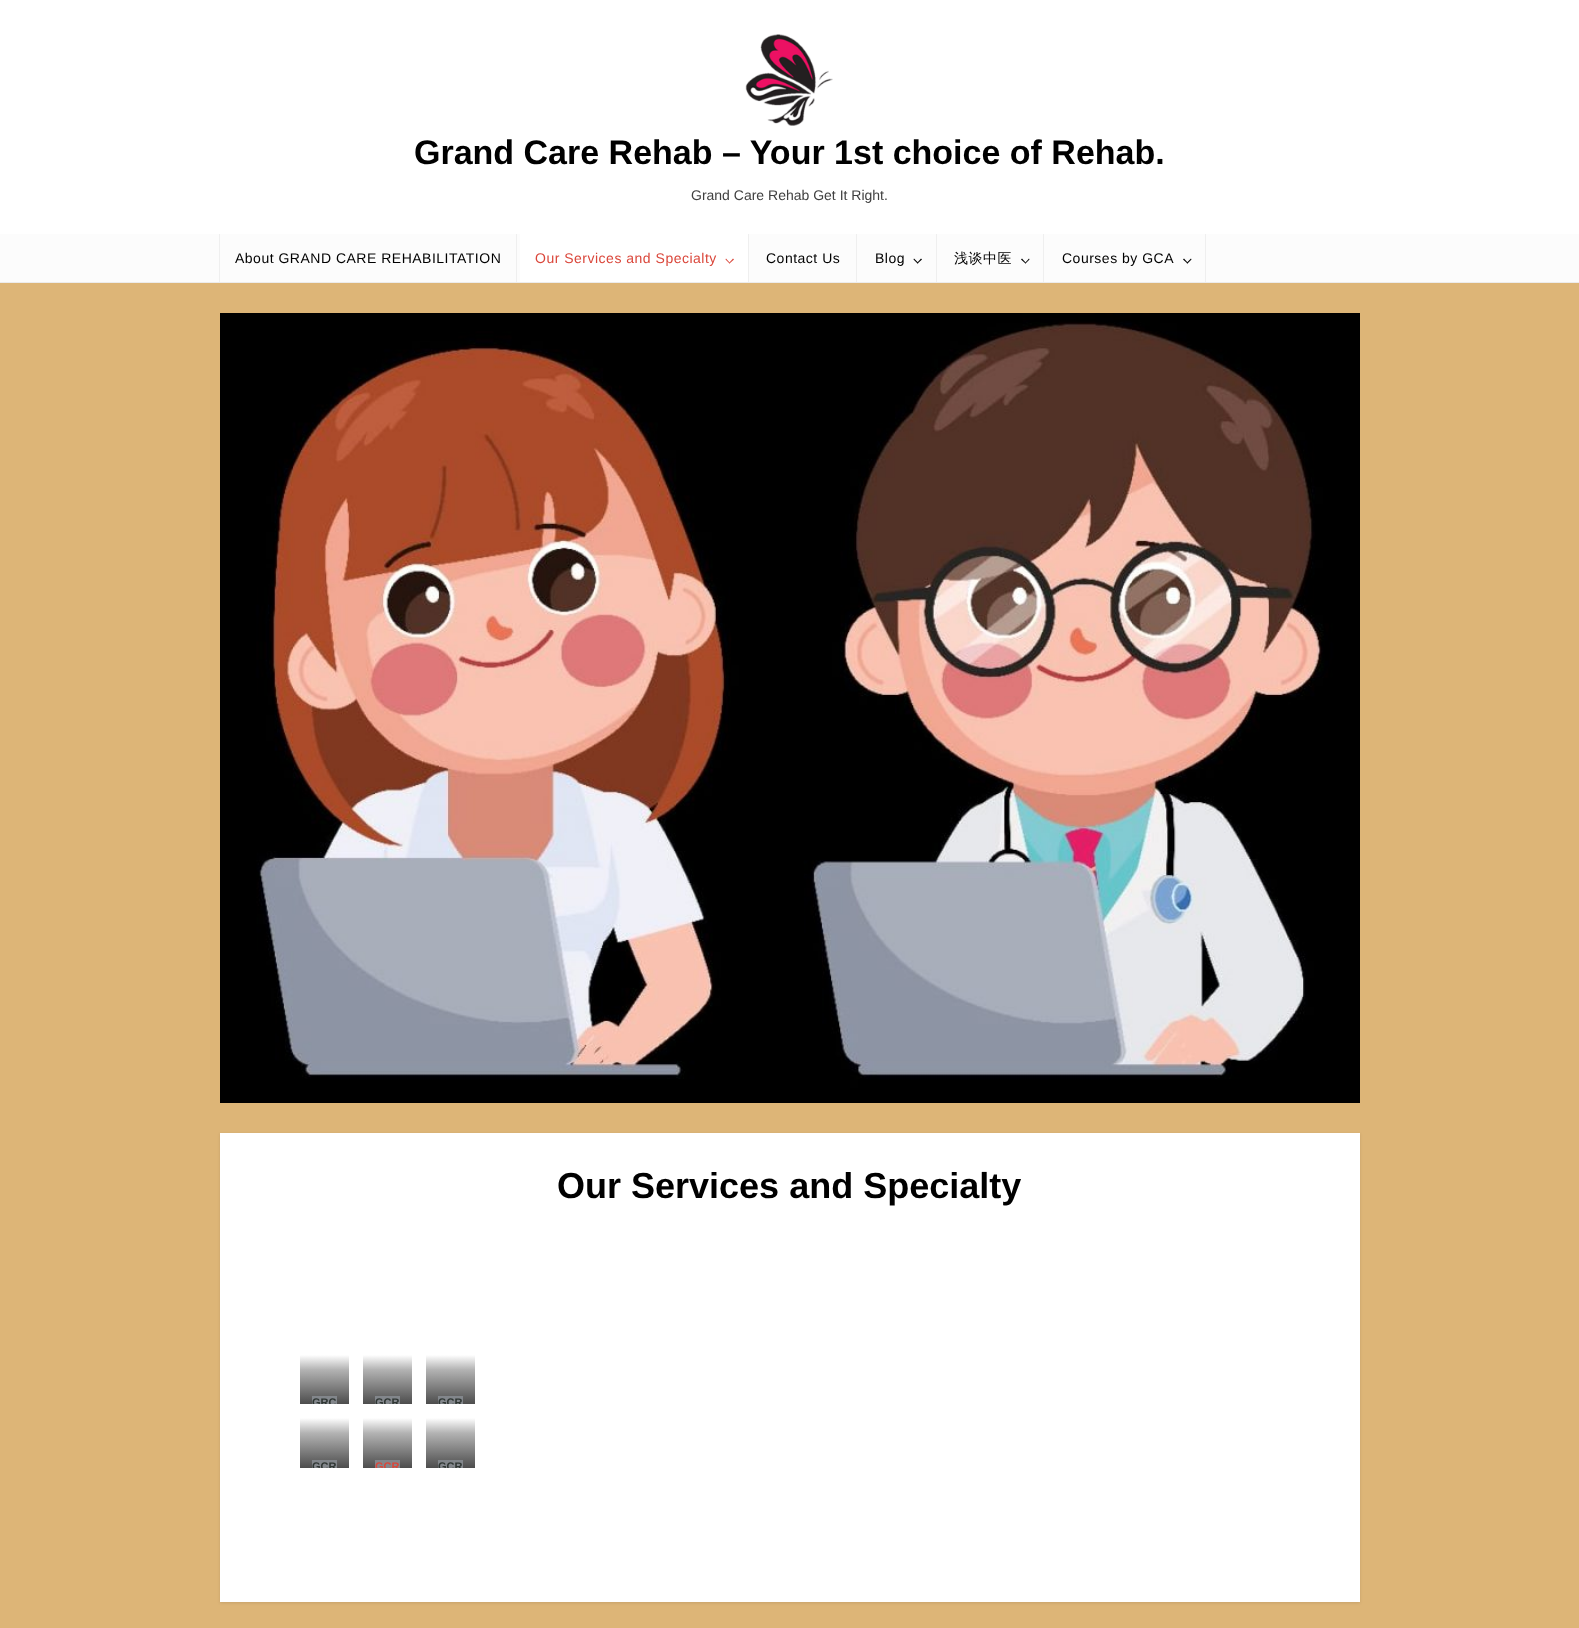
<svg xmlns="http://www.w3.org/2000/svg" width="1579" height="1628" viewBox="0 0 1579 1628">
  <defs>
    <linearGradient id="g1" gradientUnits="userSpaceOnUse" x1="325" y1="1404" x2="325" y2="1355"><stop offset="0" stop-color="#4d4d4d"/><stop offset="0.7" stop-color="#b3b3b3"/><stop offset="1" stop-color="#fff"/></linearGradient>
    <linearGradient id="g2" gradientUnits="userSpaceOnUse" x1="388" y1="1404" x2="388" y2="1355"><stop offset="0" stop-color="#4d4d4d"/><stop offset="0.7" stop-color="#b3b3b3"/><stop offset="1" stop-color="#fff"/></linearGradient>
    <linearGradient id="g3" gradientUnits="userSpaceOnUse" x1="451" y1="1404" x2="451" y2="1355"><stop offset="0" stop-color="#4d4d4d"/><stop offset="0.7" stop-color="#b3b3b3"/><stop offset="1" stop-color="#fff"/></linearGradient>
    <linearGradient id="g4" gradientUnits="userSpaceOnUse" x1="325" y1="1468" x2="325" y2="1418"><stop offset="0" stop-color="#4d4d4d"/><stop offset="0.7" stop-color="#b3b3b3"/><stop offset="1" stop-color="#fff"/></linearGradient>
    <linearGradient id="g5" gradientUnits="userSpaceOnUse" x1="388" y1="1468" x2="388" y2="1418"><stop offset="0" stop-color="#4d4d4d"/><stop offset="0.7" stop-color="#b3b3b3"/><stop offset="1" stop-color="#fff"/></linearGradient>
    <linearGradient id="g6" gradientUnits="userSpaceOnUse" x1="451" y1="1468" x2="451" y2="1418"><stop offset="0" stop-color="#4d4d4d"/><stop offset="0.7" stop-color="#b3b3b3"/><stop offset="1" stop-color="#fff"/></linearGradient>
    <clipPath id="clip1"><path d="M300 1355h49v49H300z"/></clipPath>
    <clipPath id="clip2"><path d="M363 1355h49v49H363z"/></clipPath>
    <clipPath id="clip3"><path d="M426 1355h49v49H426z"/></clipPath>
    <clipPath id="clip4"><path d="M300 1418h49v50H300z"/></clipPath>
    <clipPath id="clip5"><path d="M363 1418h49v50H363z"/></clipPath>
    <clipPath id="clip6"><path d="M426 1418h49v50H426z"/></clipPath>
  </defs>
  <rect width="100%" height="100%" fill="#ddb577"/>
  <path d="M0 282h1579v1H0z" fill="#ececec"/>
  <path d="M0 0h1579v234H0z" fill="#fff"/>
  <image x="745" y="34" width="88" height="92" href="img/1.png"/>
  <path d="M0 234h1579v48H0z" fill="#fcfcfc"/>
  <path d="M516 234h1v48H516z" fill="#efefef"/>
  <path d="M219 234h1v48H219z" fill="#efefef"/>
  <path d="M748 234h1v48H748z" fill="#efefef"/>
  <path d="M520 234h228v48H520z" fill="#fff"/>
  <path d="M733 258.5L734 259.5L729.5 263.5L729 263Z" fill="#da463a"/>
  <path d="M726 258.5L730 263L729.5 263.5L725.5 259.5Z" fill="#da463a"/>
  <path d="M856 234h1v48H856z" fill="#efefef"/>
  <path d="M936 234h1v48H936z" fill="#efefef"/>
  <path d="M921 258.5L922 259.5L917.5 263.5L917 263Z" fill="#000"/>
  <path d="M914 258.5L918.5 263L917.5 263.5L913.5 259.5Z" fill="#000"/>
  <path d="M1043 234h1v48H1043z" fill="#efefef"/>
  <path d="M1029 258.5L1029.5 259.5L1025.5 263.5L1025 263Z" fill="#000"/>
  <path d="M1022 258.5L1026 263L1025.5 263.5L1021 259.5Z" fill="#000"/>
  <path d="M1205 234h1v48H1205z" fill="#efefef"/>
  <path d="M1191 258.5L1191.5 259.5L1187.5 263.5L1186.5 263Z" fill="#000"/>
  <path d="M1184 258.5L1188 263L1187.5 263.5L1183 259.5Z" fill="#000"/>
  <image x="220" y="313" width="1140" height="790" href="img/2.png"/>
  <path d="M220 1134h1140v469H220z" fill="#0000001a" filter="blur(1.5px)"/>
  <path d="M220 1133h1140v469H220z" fill="#fff"/>
  <path d="M300 1355h49v49H300z" fill="url(#g1)"/>
  <path d="M312 1396h25v8H312z" fill="#82868b"/>
  <path d="M363 1355h49v49H363z" fill="url(#g2)"/>
  <path d="M375 1396h25v8H375z" fill="#82868b"/>
  <path d="M426 1355h49v49H426z" fill="url(#g3)"/>
  <path d="M438 1396h25v8H438z" fill="#82868b"/>
  <path d="M300 1418h49v50H300z" fill="url(#g4)"/>
  <path d="M312 1460h25v8H312z" fill="#82868b"/>
  <path d="M363 1418h49v50H363z" fill="url(#g5)"/>
  <path d="M375 1460h25v8H375z" fill="#82868b"/>
  <path d="M426 1418h49v50H426z" fill="url(#g6)"/>
  <path d="M438 1460h25v8H438z" fill="#82868b"/>
  <text x="414" y="164" font-family="Liberation Sans" font-size="34" font-weight="bold" fill="#000">Grand Care Rehab – Your 1st choice of Rehab.</text>
  <text x="691" y="200" font-family="Liberation Sans" font-size="14" fill="#404040">Grand Care Rehab Get It Right.</text>
  <text x="235" y="263" font-family="Liberation Sans" font-size="14" letter-spacing="0.5" fill="#000">About GRAND CARE REHABILITATION</text>
  <text x="535" y="263" font-family="Liberation Sans" font-size="14" letter-spacing="0.5" fill="#da463a">Our Services and Specialty</text>
  <g font-family="Liberation Sans" font-size="14" letter-spacing="0.5" fill="#000">
    <text x="766" y="263">Contact Us</text>
    <text x="875" y="263">Blog</text>
  </g>
  <text x="954" y="263" font-family="WenQuanYi Zen Hei" font-size="14" font-weight="500" letter-spacing="0.5" fill="#000">浅谈中医</text>
  <text x="1062" y="263" font-family="Liberation Sans" font-size="14" letter-spacing="0.5" fill="#000">Courses by GCA</text>
  <text x="557" y="1198" font-family="Liberation Sans" font-size="36" font-weight="bold" fill="#000">Our Services and Specialty</text>
  <g clip-path="url(#clip1)">
    <text x="312" y="1406" font-family="Liberation Sans" font-size="11" font-weight="bold" fill="#2f3633">GRC</text>
  </g>
  <g clip-path="url(#clip2)">
    <text x="375" y="1406" font-family="Liberation Sans" font-size="11" font-weight="bold" fill="#2f3633">GCR</text>
  </g>
  <g clip-path="url(#clip3)">
    <text x="438" y="1406" font-family="Liberation Sans" font-size="11" font-weight="bold" fill="#2f3633">GCR</text>
  </g>
  <g clip-path="url(#clip4)">
    <text x="312" y="1470" font-family="Liberation Sans" font-size="11" font-weight="bold" fill="#2f3633">GCR</text>
  </g>
  <g clip-path="url(#clip5)">
    <text x="375" y="1470" font-family="Liberation Sans" font-size="11" font-weight="bold" fill="#da463a">GCR</text>
  </g>
  <g clip-path="url(#clip6)">
    <text x="438" y="1470" font-family="Liberation Sans" font-size="11" font-weight="bold" fill="#2f3633">GCR</text>
  </g>
</svg>
